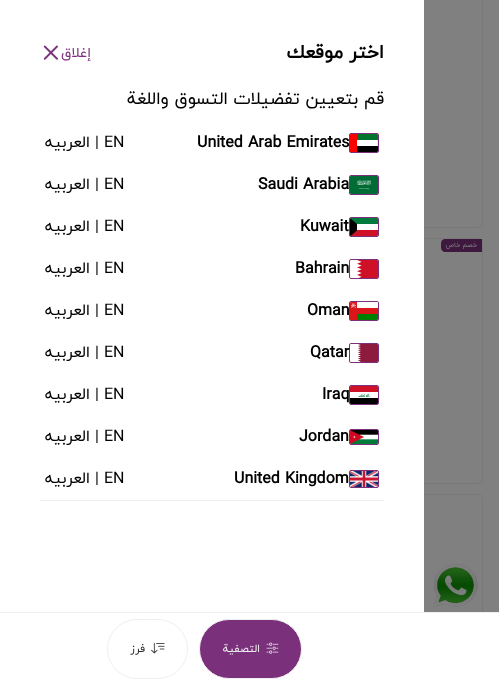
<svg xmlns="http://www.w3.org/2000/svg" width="499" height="685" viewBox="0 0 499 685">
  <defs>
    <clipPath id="clip1"><path d="M350 218h28v18H350z"/></clipPath>
  </defs>
  <rect width="100%" height="100%" fill="#808080"/>
  <rect x="16.5" y="-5.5" width="466" height="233" rx="4.5" fill="none" stroke="#787878"/>
  <rect x="16.5" y="238.5" width="466" height="245" rx="4.5" fill="none" stroke="#787878"/>
  <path d="M445 239H482V252H445C443 252 441 250 441 248V243C441 241 443 239 445 239Z" fill="#3e183e"/>
  <rect x="16.5" y="494.5" width="466" height="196" rx="4.5" fill="none" stroke="#787878"/>
  <path d="M0 0h424v612H0z" fill="#fff"/>
  <image x="43" y="45" width="15" height="15" href="img/1.png"/>
  <path d="M40 500h344v1H40z" fill="#eee"/>
  <rect x="349.5" y="133.5" width="29" height="19" rx="1.5" fill="none" stroke="#7b307b"/>
  <image x="350" y="134" width="28" height="18" href="img/2.png"/>
  <rect x="349.5" y="175.5" width="29" height="19" rx="1.5" fill="none" stroke="#7b307b"/>
  <image x="350" y="176" width="28" height="18" href="img/3.png"/>
  <rect x="349.5" y="217.5" width="29" height="19" rx="1.5" fill="none" stroke="#7b307b"/>
  <rect x="350" y="218" width="28" height="18" rx="1" fill="#fff"/>
  <path d="M351 218H377C377.5 218 378 218.5 378 219V224H350V219C350 218.5 350.5 218 351 218Z" fill="#007a3d"/>
  <path d="M350 230H378V235C378 235.5 377.5 236 377 236H351C350.5 236 350 235.5 350 235Z" fill="#ce1126"/>
  <g clip-path="url(#clip1)">
    <path d="M357 224L350.5 218.5C349.5 219 350 233.5 350 235L350.5 236L357 230.5Z" fill="#000"/>
  </g>
  <rect x="349.5" y="259.5" width="29" height="19" rx="1.5" fill="none" stroke="#7b307b"/>
  <image x="350" y="260" width="28" height="18" href="img/4.png"/>
  <rect x="349.5" y="301.5" width="29" height="19" rx="1.5" fill="none" stroke="#7b307b"/>
  <image x="350" y="302" width="28" height="18" href="img/5.png"/>
  <rect x="349.5" y="343.5" width="29" height="19" rx="1.5" fill="none" stroke="#7b307b"/>
  <image x="350" y="344" width="28" height="18" href="img/6.png"/>
  <rect x="349.5" y="385.5" width="29" height="19" rx="1.5" fill="none" stroke="#7b307b"/>
  <image x="350" y="386" width="28" height="18" href="img/7.png"/>
  <rect x="349.5" y="429.5" width="29" height="15" rx="1.5" fill="none" stroke="#7b307b"/>
  <image x="350" y="430" width="28" height="14" href="img/8.png"/>
  <rect x="349.5" y="470.5" width="29" height="17" rx="1.5" fill="none" stroke="#7b307b"/>
  <image x="350" y="471" width="28" height="16" href="img/9.png"/>
  <image x="433" y="563" width="45" height="45" href="img/10.png"/>
  <path d="M0 613h499v72H0z" fill="#fff"/>
  <path d="M0 612h499v1H0z" fill="#efefef"/>
  <rect x="199.5" y="619.5" width="102" height="59" rx="29.5" fill="#7b307b" stroke="#efefef"/>
  <image x="266" y="642" width="13" height="12" href="img/11.png"/>
  <rect x="107.5" y="619.5" width="80" height="59" rx="29.5" fill="none" stroke="#efefef"/>
  <image x="151" y="643" width="14" height="11" href="img/12.png"/>
  <text x="477" y="247" font-family="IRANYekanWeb" font-size="6.75" direction="rtl" fill="#808080">خصم خاص</text>
  <text x="384" y="58" font-family="IRANYekanWeb" font-size="19.25" font-weight="bold" direction="rtl" fill="#000">اختر موقعك</text>
  <text x="91" y="57" font-family="IRANYekanWeb" font-size="14" direction="rtl" fill="#7b307b">إغلاق</text>
  <text x="384" y="104" font-family="IRANYekanWeb" font-size="17.6" direction="rtl" fill="#000">قم بتعيين تفضيلات التسوق واللغة</text>
  <text x="197" y="147" font-family="IRANYekanWeb" font-size="16" font-weight="bold" fill="#000">United Arab Emirates</text>
  <g font-family="IRANYekanWeb" font-size="16" fill="#000">
    <text x="104" y="147">EN</text>
    <text x="95" y="147">|</text>
  </g>
  <text x="90" y="147" font-family="IRANYekanWeb" font-size="16" direction="rtl" fill="#000">العربیه</text>
  <text x="258" y="189" font-family="IRANYekanWeb" font-size="16" font-weight="bold" fill="#000">Saudi Arabia</text>
  <g font-family="IRANYekanWeb" font-size="16" fill="#000">
    <text x="104" y="189">EN</text>
    <text x="95" y="189">|</text>
  </g>
  <text x="90" y="189" font-family="IRANYekanWeb" font-size="16" direction="rtl" fill="#000">العربیه</text>
  <text x="300" y="231" font-family="IRANYekanWeb" font-size="16" font-weight="bold" fill="#000">Kuwait</text>
  <g font-family="IRANYekanWeb" font-size="16" fill="#000">
    <text x="104" y="231">EN</text>
    <text x="95" y="231">|</text>
  </g>
  <text x="90" y="231" font-family="IRANYekanWeb" font-size="16" direction="rtl" fill="#000">العربیه</text>
  <text x="295" y="273" font-family="IRANYekanWeb" font-size="16" font-weight="bold" fill="#000">Bahrain</text>
  <g font-family="IRANYekanWeb" font-size="16" fill="#000">
    <text x="104" y="273">EN</text>
    <text x="95" y="273">|</text>
  </g>
  <text x="90" y="273" font-family="IRANYekanWeb" font-size="16" direction="rtl" fill="#000">العربیه</text>
  <text x="307" y="315" font-family="IRANYekanWeb" font-size="16" font-weight="bold" fill="#000">Oman</text>
  <g font-family="IRANYekanWeb" font-size="16" fill="#000">
    <text x="104" y="315">EN</text>
    <text x="95" y="315">|</text>
  </g>
  <text x="90" y="315" font-family="IRANYekanWeb" font-size="16" direction="rtl" fill="#000">العربیه</text>
  <text x="310" y="357" font-family="IRANYekanWeb" font-size="16" font-weight="bold" fill="#000">Qatar</text>
  <g font-family="IRANYekanWeb" font-size="16" fill="#000">
    <text x="104" y="357">EN</text>
    <text x="95" y="357">|</text>
  </g>
  <text x="90" y="357" font-family="IRANYekanWeb" font-size="16" direction="rtl" fill="#000">العربیه</text>
  <text x="322" y="399" font-family="IRANYekanWeb" font-size="16" font-weight="bold" fill="#000">Iraq</text>
  <g font-family="IRANYekanWeb" font-size="16" fill="#000">
    <text x="104" y="399">EN</text>
    <text x="95" y="399">|</text>
  </g>
  <text x="90" y="399" font-family="IRANYekanWeb" font-size="16" direction="rtl" fill="#000">العربیه</text>
  <text x="299" y="441" font-family="IRANYekanWeb" font-size="16" font-weight="bold" fill="#000">Jordan</text>
  <g font-family="IRANYekanWeb" font-size="16" fill="#000">
    <text x="104" y="441">EN</text>
    <text x="95" y="441">|</text>
  </g>
  <text x="90" y="441" font-family="IRANYekanWeb" font-size="16" direction="rtl" fill="#000">العربیه</text>
  <text x="234" y="483" font-family="IRANYekanWeb" font-size="16" font-weight="bold" fill="#000">United Kingdom</text>
  <g font-family="IRANYekanWeb" font-size="16" fill="#000">
    <text x="104" y="483">EN</text>
    <text x="95" y="483">|</text>
  </g>
  <text x="90" y="483" font-family="IRANYekanWeb" font-size="16" direction="rtl" fill="#000">العربیه</text>
  <text x="260" y="652" font-family="IRANYekanWeb" font-size="11" direction="rtl" fill="#efefef">التصفية</text>
  <text x="145" y="652" font-family="IRANYekanWeb" font-size="11" direction="rtl" fill="#282828">فرز</text>
</svg>
